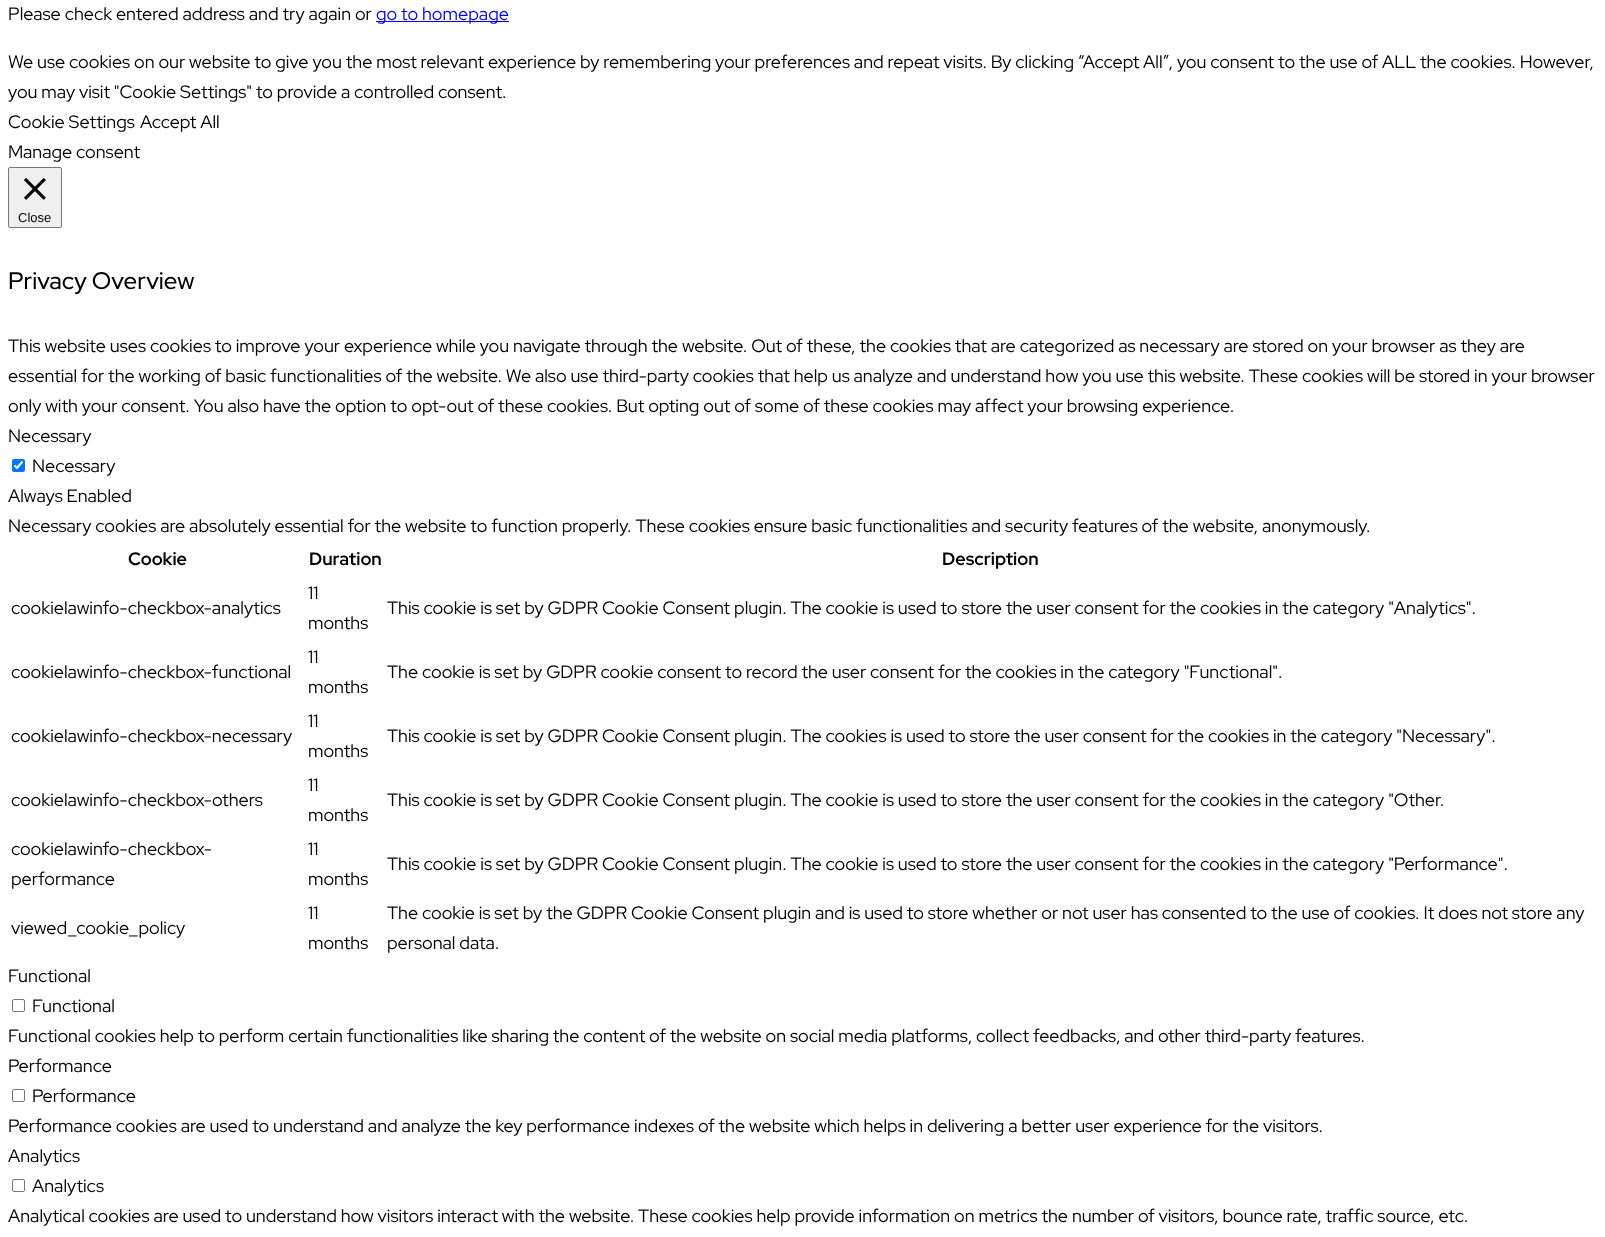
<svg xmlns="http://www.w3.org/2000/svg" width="1605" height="1237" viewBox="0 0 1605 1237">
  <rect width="100%" height="100%" fill="#fff"/>
  <path d="M376 21h133v1H376z" fill="#00e"/>
  <rect x="8.5" y="167.5" width="53" height="60" rx="1.5" fill="#efefef" stroke="#767676"/>
  <image x="24" y="178" width="22" height="22" href="img/1.png"/>
  <rect x="12" y="459" width="13" height="13" rx="2" fill="#0075ff"/>
  <path d="M14.5 465.5L17 468L22.5 461.5" fill="none" stroke="#fff" stroke-width="2.1"/>
  <rect x="12.5" y="999.5" width="12" height="12" rx="1.5" fill="none" stroke="#767676"/>
  <rect x="12.5" y="1089.5" width="12" height="12" rx="1.5" fill="none" stroke="#767676"/>
  <rect x="12.5" y="1179.5" width="12" height="12" rx="1.5" fill="none" stroke="#767676"/>
  <text x="8" y="20" font-family="Red Hat Display" font-size="18" fill="#000">Please check entered address and try again or</text>
  <text x="376" y="20" font-family="Red Hat Display" font-size="18" fill="#00e">go to homepage</text>
  <g font-family="Red Hat Display" font-size="18" fill="#000">
    <text x="8" y="68">We use cookies on our website to give you the most relevant experience by remembering your preferences and repeat visits. By clicking “Accept All”, you consent to the use of ALL the cookies. However,</text>
    <text x="8" y="98">you may visit "Cookie Settings" to provide a controlled consent.</text>
    <text x="8" y="128">Cookie Settings</text>
    <text x="140" y="128">Accept All</text>
    <text x="8" y="158">Manage consent</text>
  </g>
  <text x="18" y="222" font-family="Liberation Sans" font-size="13" fill="#000">Close</text>
  <text x="8" y="289" font-family="Red Hat Display" font-size="24" font-weight="500" fill="#000">Privacy Overview</text>
  <g font-family="Red Hat Display" font-size="18" fill="#000">
    <text x="8" y="352">This website uses cookies to improve your experience while you navigate through the website. Out of these, the cookies that are categorized as necessary are stored on your browser as they are</text>
    <text x="8" y="382">essential for the working of basic functionalities of the website. We also use third-party cookies that help us analyze and understand how you use this website. These cookies will be stored in your browser</text>
    <text x="8" y="412">only with your consent. You also have the option to opt-out of these cookies. But opting out of some of these cookies may affect your browsing experience.</text>
    <text x="8" y="442">Necessary</text>
    <text x="32" y="472">Necessary</text>
    <text x="8" y="502">Always Enabled</text>
    <text x="8" y="532">Necessary cookies are absolutely essential for the website to function properly. These cookies ensure basic functionalities and security features of the website, anonymously.</text>
  </g>
  <g font-family="Red Hat Display" font-size="18" font-weight="bold" fill="#000">
    <text x="128" y="565">Cookie</text>
    <text x="309" y="565">Duration</text>
    <text x="942" y="565">Description</text>
  </g>
  <g font-family="Red Hat Display" font-size="18" fill="#000">
    <text x="11" y="614">cookielawinfo-checkbox-analytics</text>
    <text x="308" y="599">11</text>
    <text x="308" y="629">months</text>
    <text x="387" y="614">This cookie is set by GDPR Cookie Consent plugin. The cookie is used to store the user consent for the cookies in the category "Analytics".</text>
    <text x="11" y="678">cookielawinfo-checkbox-functional</text>
    <text x="308" y="663">11</text>
    <text x="308" y="693">months</text>
    <text x="387" y="678">The cookie is set by GDPR cookie consent to record the user consent for the cookies in the category "Functional".</text>
    <text x="11" y="742">cookielawinfo-checkbox-necessary</text>
    <text x="308" y="727">11</text>
    <text x="308" y="757">months</text>
    <text x="387" y="742">This cookie is set by GDPR Cookie Consent plugin. The cookies is used to store the user consent for the cookies in the category "Necessary".</text>
    <text x="11" y="806">cookielawinfo-checkbox-others</text>
    <text x="308" y="791">11</text>
    <text x="308" y="821">months</text>
    <text x="387" y="806">This cookie is set by GDPR Cookie Consent plugin. The cookie is used to store the user consent for the cookies in the category "Other.</text>
    <text x="11" y="855">cookielawinfo-checkbox-</text>
    <text x="11" y="885">performance</text>
    <text x="308" y="855">11</text>
    <text x="308" y="885">months</text>
    <text x="387" y="870">This cookie is set by GDPR Cookie Consent plugin. The cookie is used to store the user consent for the cookies in the category "Performance".</text>
    <text x="11" y="934">viewed_cookie_policy</text>
    <text x="308" y="919">11</text>
    <text x="308" y="949">months</text>
    <text x="387" y="919">The cookie is set by the GDPR Cookie Consent plugin and is used to store whether or not user has consented to the use of cookies. It does not store any</text>
    <text x="387" y="949">personal data.</text>
    <text x="8" y="982">Functional</text>
    <text x="32" y="1012">Functional</text>
    <text x="8" y="1042">Functional cookies help to perform certain functionalities like sharing the content of the website on social media platforms, collect feedbacks, and other third-party features.</text>
    <text x="8" y="1072">Performance</text>
    <text x="32" y="1102">Performance</text>
    <text x="8" y="1132">Performance cookies are used to understand and analyze the key performance indexes of the website which helps in delivering a better user experience for the visitors.</text>
    <text x="8" y="1162">Analytics</text>
    <text x="32" y="1192">Analytics</text>
    <text x="8" y="1222">Analytical cookies are used to understand how visitors interact with the website. These cookies help provide information on metrics the number of visitors, bounce rate, traffic source, etc.</text>
  </g>
</svg>
